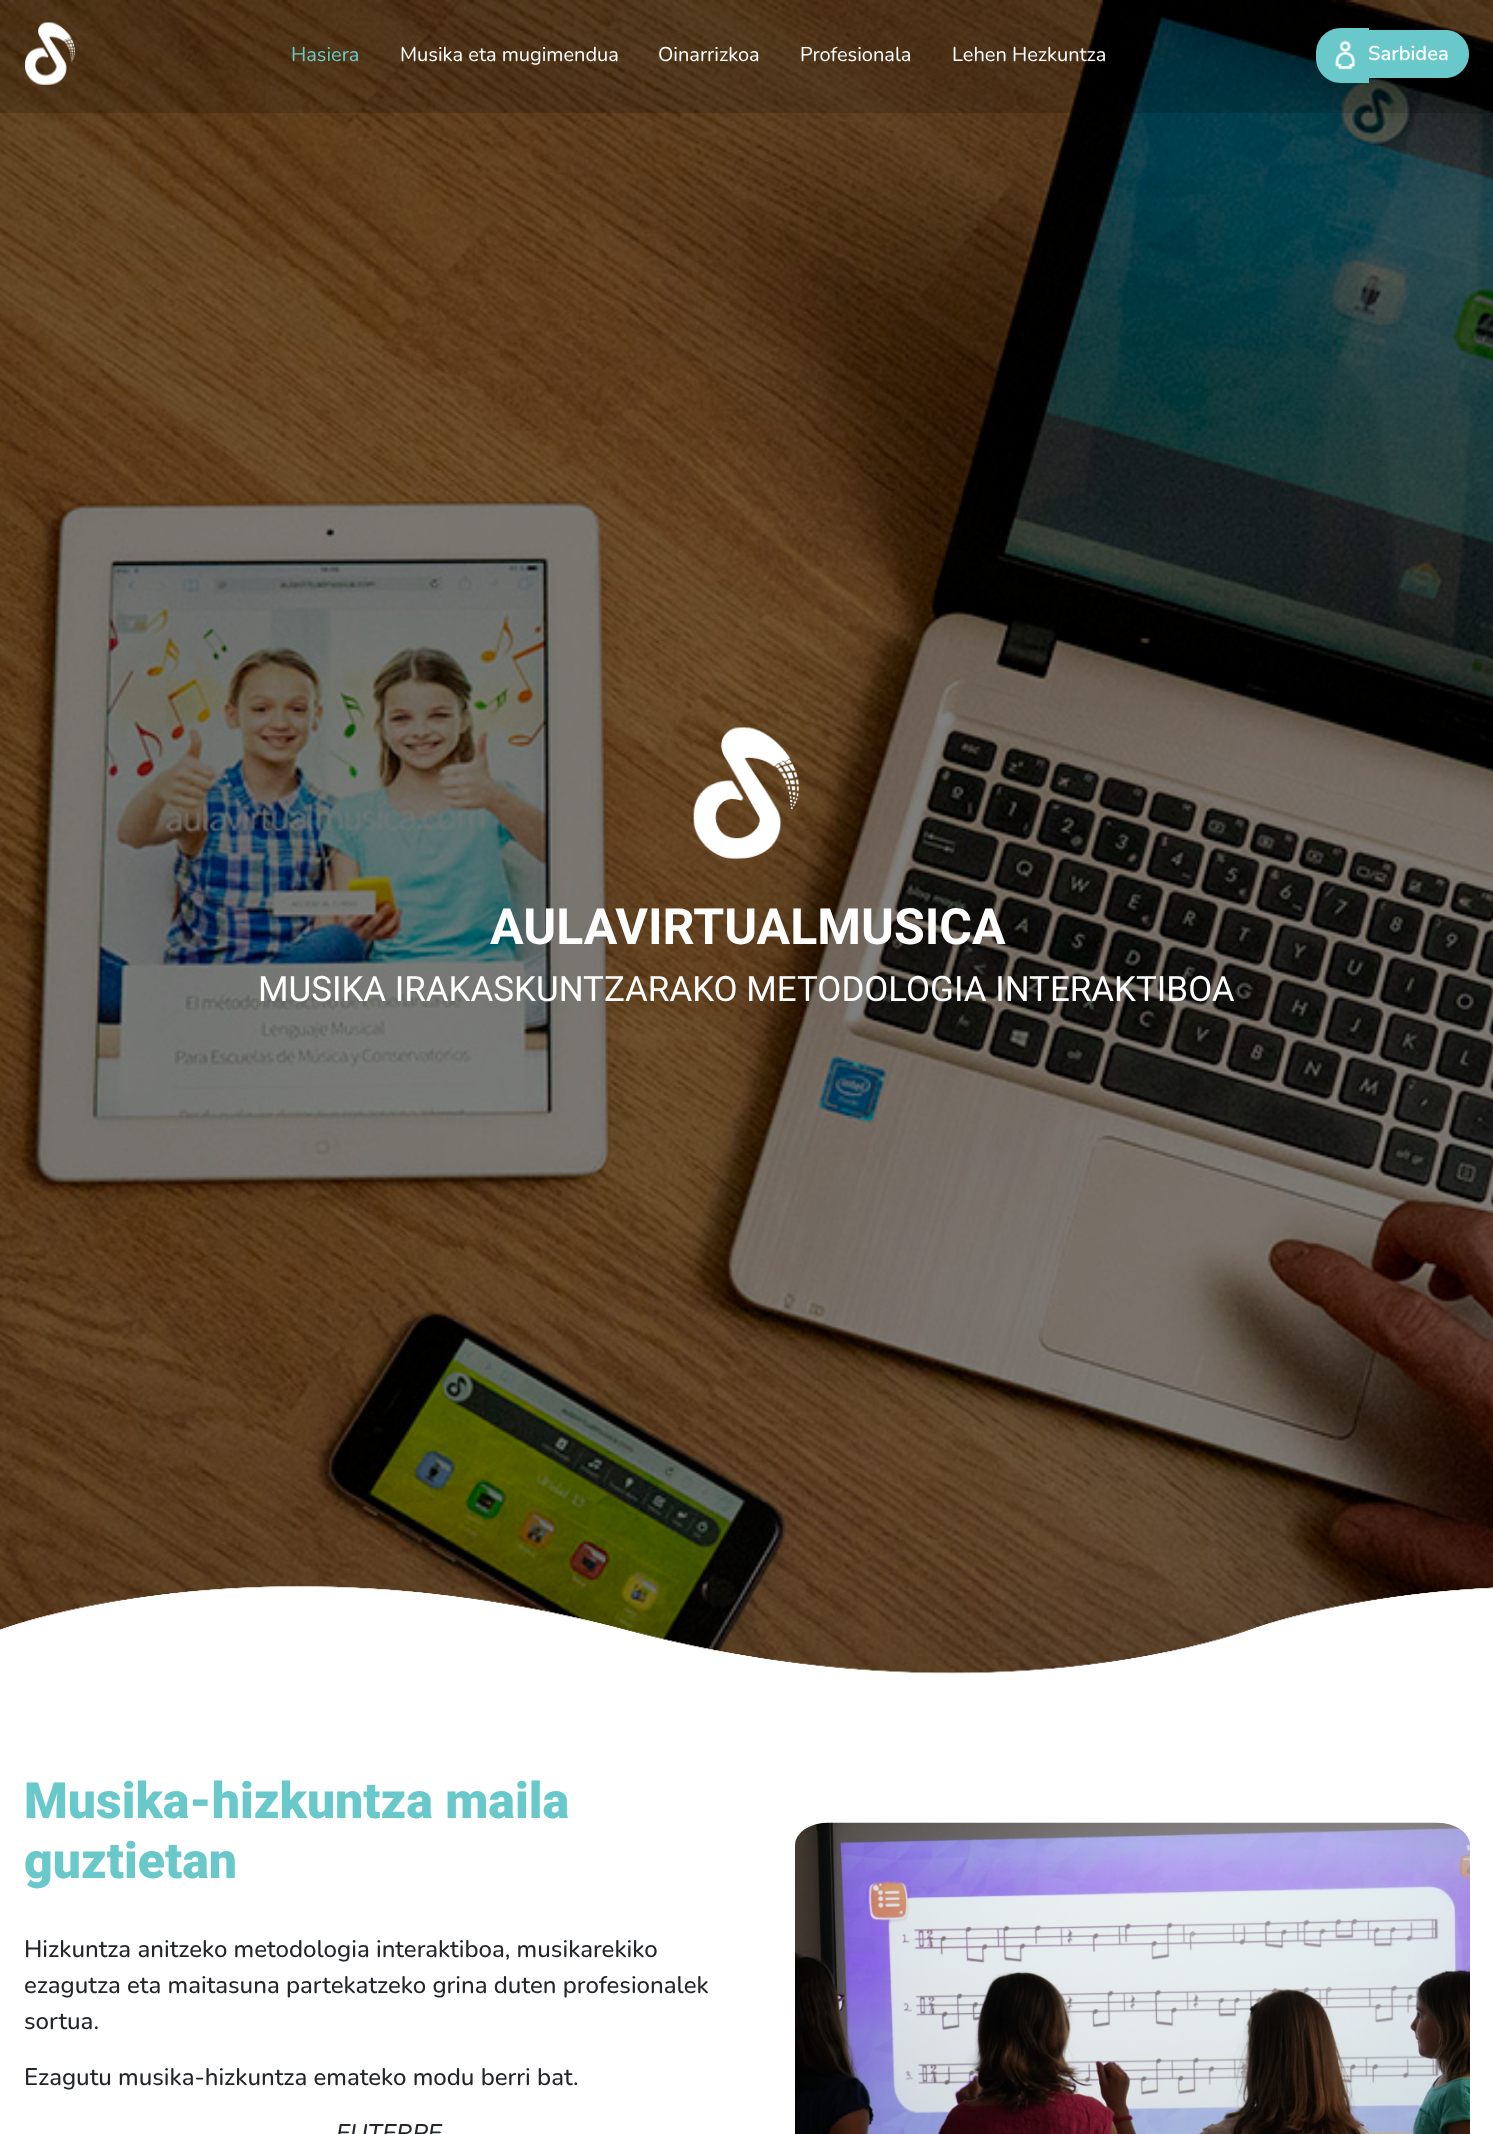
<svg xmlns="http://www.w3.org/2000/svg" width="1493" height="2134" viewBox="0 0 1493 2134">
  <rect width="100%" height="100%" fill="#fff"/>
  <image x="0" y="0" width="1493" height="1674" href="img/3.png"/>
  <path d="M0 0h1493v113H0z" fill="#00000029"/>
  <image x="25" y="22" width="50" height="63" href="img/1.png"/>
  <path d="M1341 28H1369V83H1341C1327 83 1316 72 1316 58V53C1316 39 1327 28 1341 28Z" fill="#69c9ca"/>
  <image x="1335" y="40" width="21" height="30" href="img/2.png"/>
  <path d="M1369 30H1445C1458.5 30 1469 40.5 1469 54C1469 67.5 1458.5 78 1445 78H1369Z" fill="#69c9ca"/>
  <image x="693" y="727" width="106" height="132" href="img/4.png"/>
  <image x="0" y="1586" width="1493" height="122" href="img/5.png"/>
  <image x="795" y="1822" width="675" height="312" href="img/6.png"/>
  <text x="291" y="61" font-family="Nunito" font-size="20" fill="#69c9ca">Hasiera</text>
  <g font-family="Nunito" font-size="20" fill="#fff">
    <text x="400" y="61">Musika eta mugimendua</text>
    <text x="658" y="61">Oinarrizkoa</text>
    <text x="800" y="61">Profesionala</text>
    <text x="952" y="61">Lehen Hezkuntza</text>
  </g>
  <text x="1368" y="60" font-family="Nunito" font-size="20" font-weight="600" fill="#fff">Sarbidea</text>
  <text x="490" y="944" font-family="Roboto" font-size="50" font-weight="bold" fill="#fff">AULAVIRTUALMUSICA</text>
  <text x="258" y="1001" font-family="Roboto" font-size="34.95" fill="#fff">MUSIKA IRAKASKUNTZARAKO METODOLOGIA INTERAKTIBOA</text>
  <g font-family="Roboto" font-size="50" font-weight="900" fill="#69c9ca">
    <text x="24" y="1818">Musika-hizkuntza maila</text>
    <text x="24" y="1878">guztietan</text>
  </g>
  <g font-family="Nunito" font-size="24" font-weight="500" fill="#22262a">
    <text x="24" y="1957">Hizkuntza anitzeko metodologia interaktiboa, musikarekiko</text>
    <text x="24" y="1993">ezagutza eta maitasuna partekatzeko grina duten profesionalek</text>
    <text x="24" y="2029">sortua.</text>
    <text x="24" y="2085">Ezagutu musika-hizkuntza emateko modu berri bat.</text>
  </g>
  <text x="336" y="2141" font-family="Nunito" font-size="24" font-weight="500" font-style="italic" fill="#22262a">EUTERPE</text>
</svg>
